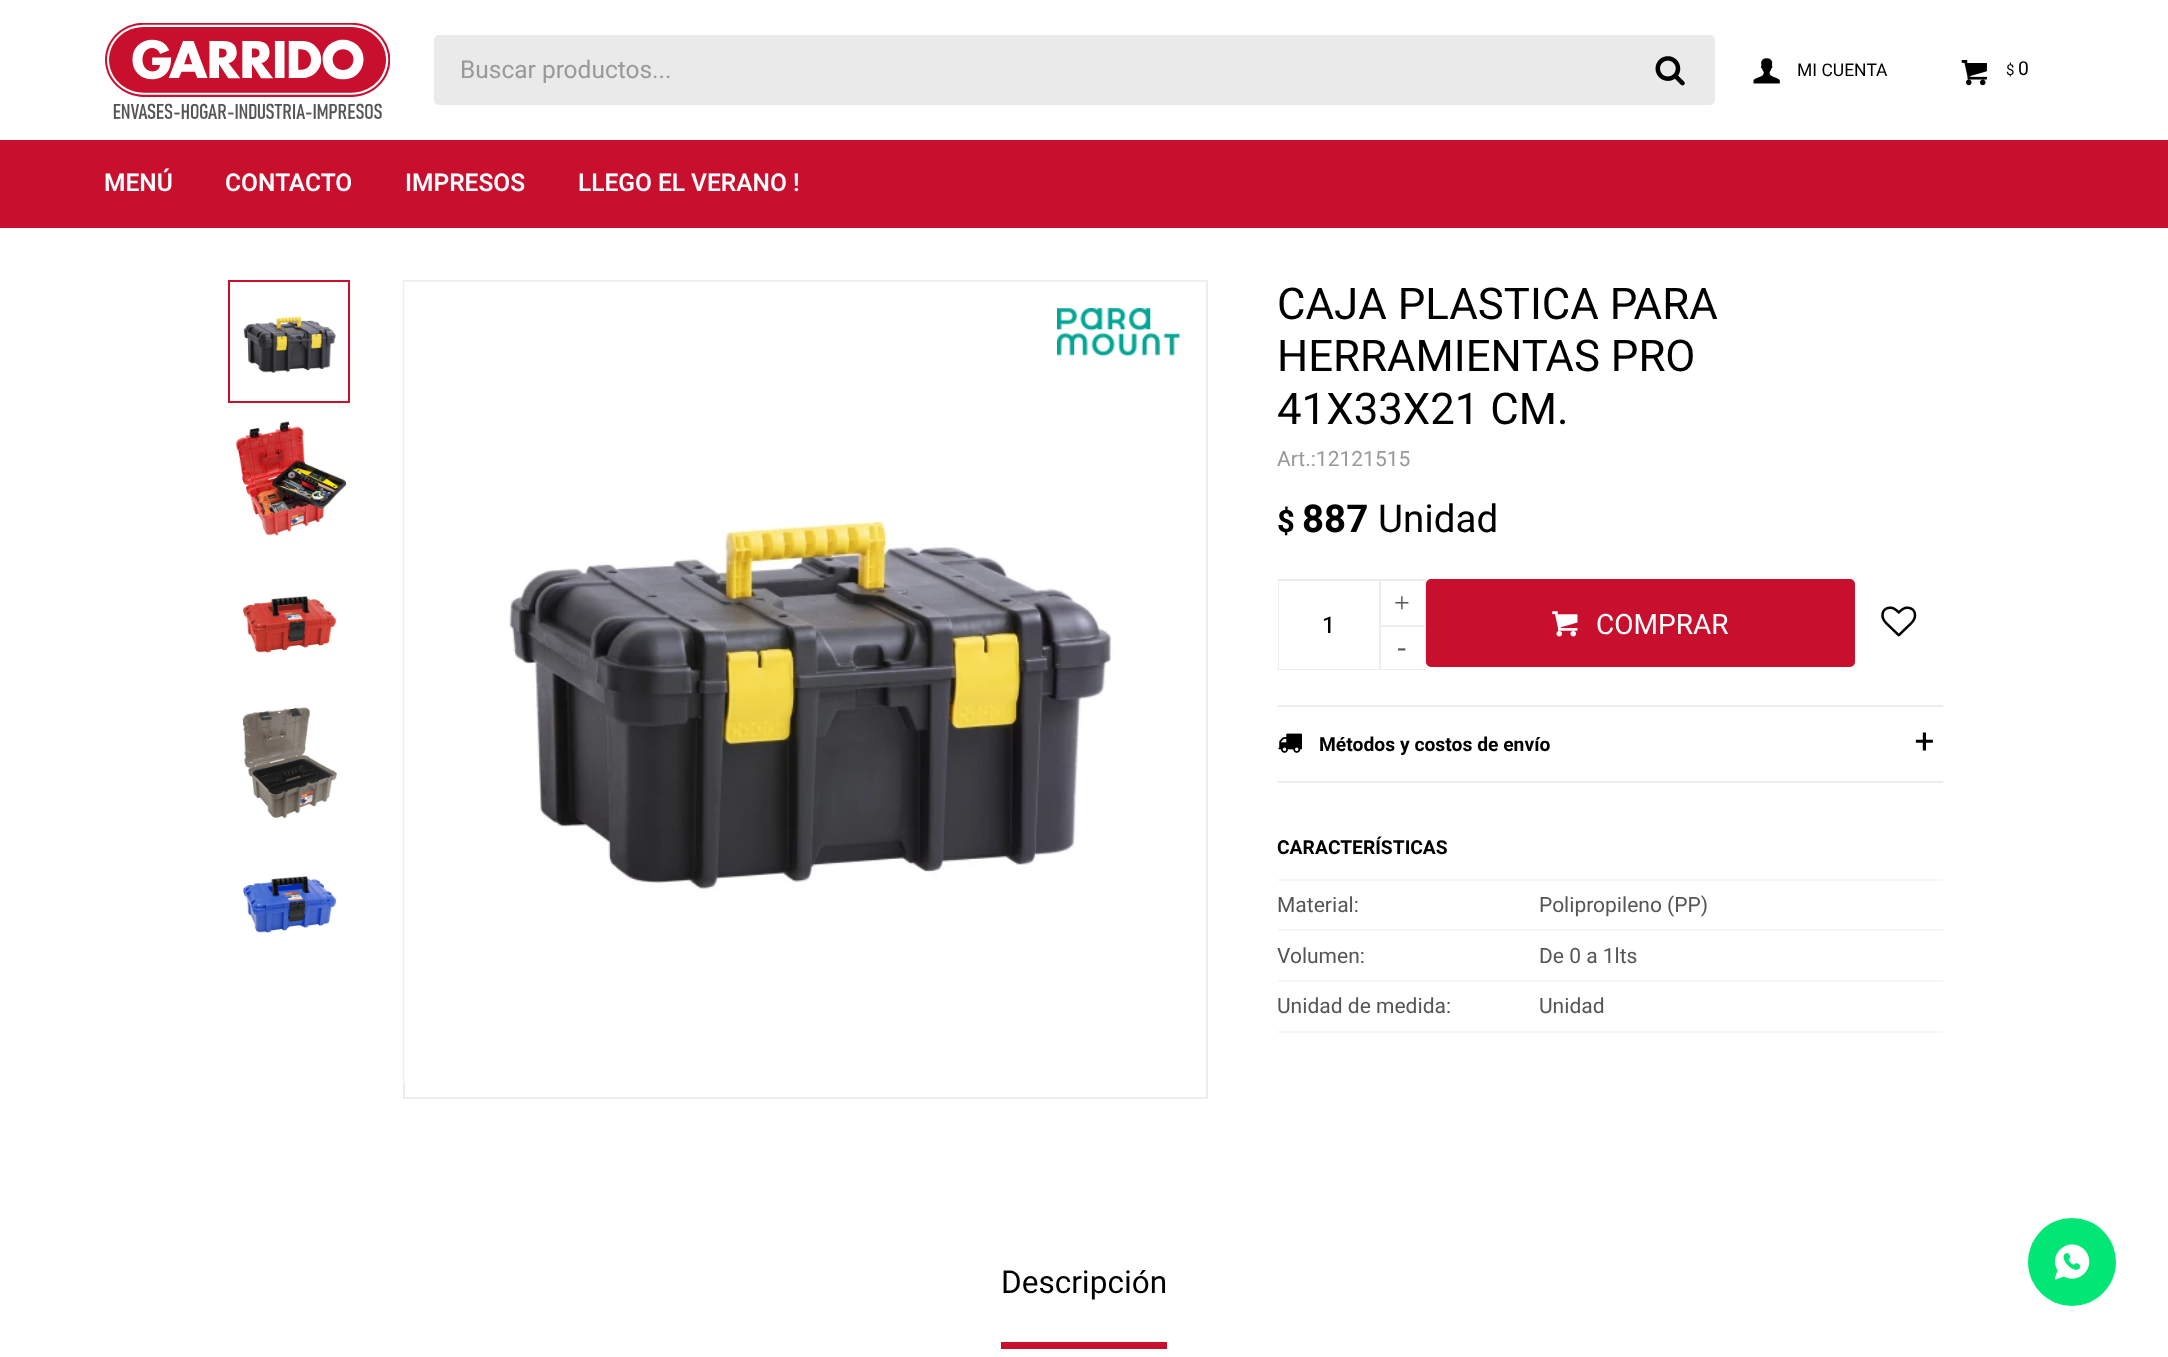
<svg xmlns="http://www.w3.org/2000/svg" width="2168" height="1357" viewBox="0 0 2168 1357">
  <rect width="100%" height="100%" fill="#fff"/>
  <image x="105" y="23" width="285" height="96" href="img/1.png"/>
  <rect x="434" y="35" width="1281" height="70" rx="5" fill="#eaeaea"/>
  <image x="1655" y="56" width="30" height="30" href="img/2.png"/>
  <image x="1753" y="58" width="27" height="26" href="img/3.png"/>
  <image x="1961" y="60" width="26" height="26" href="img/4.png"/>
  <path d="M0 140h2168v88H0z" fill="#c8102e"/>
  <image x="243" y="316" width="93" height="58" href="img/5.png"/>
  <path d="M229 281h120v121H229z" fill="none" stroke="#c8102e" stroke-width="2"/>
  <image x="235" y="421" width="112" height="115" href="img/6.png"/>
  <image x="243" y="596" width="94" height="57" href="img/7.png"/>
  <image x="242" y="707" width="95" height="112" href="img/8.png"/>
  <image x="243" y="876" width="94" height="57" href="img/9.png"/>
  <path d="M404 281h803v817H404z" fill="none" stroke="#ededed" stroke-width="2"/>
  <image x="404" y="281" width="801" height="802" href="img/10.png"/>
  <image x="1057" y="308" width="123" height="48" href="img/11.png"/>
  <path d="M1279 580h146v89H1279z" fill="none" stroke="#ededed" stroke-width="2"/>
  <path d="M1279 581h100v88H1279z" fill="#fff"/>
  <path d="M1379 581h2v88H1379z" fill="#ededed"/>
  <path d="M1381 581h44v88H1381z" fill="#fff"/>
  <path d="M1381 625h44v2H1381z" fill="#ededed"/>
  <rect x="1426" y="579" width="429" height="88" rx="5" fill="#c8102e"/>
  <image x="1552" y="611" width="26" height="26" href="img/12.png"/>
  <image x="1881" y="606" width="36" height="31" href="img/13.png"/>
  <path d="M1278 705h665v2H1278z" fill="#ededed"/>
  <path d="M1278 781h665v2H1278z" fill="#ededed"/>
  <image x="1278" y="733" width="24" height="20" href="img/14.png"/>
  <path d="M1278 879h665v2H1278z" fill="#f6f6f6"/>
  <path d="M1278 929h665v2H1278z" fill="#f6f6f6"/>
  <path d="M1278 980h665v2H1278z" fill="#f6f6f6"/>
  <path d="M1278 1031h665v2H1278z" fill="#f6f6f6"/>
  <path d="M1001 1342h166v7H1001z" fill="#c8102e"/>
  <circle cx="2072" cy="1262" r="44" fill="#01e675"/>
  <image x="2054" y="1244" width="36" height="36" href="img/15.png"/>
  <text x="460" y="78" font-family="Heebo" font-size="24.5" fill="#999">Buscar productos...</text>
  <text x="1797" y="76" font-family="Heebo" font-size="17.5" fill="#000">MI CUENTA</text>
  <text x="2006" y="75" font-family="Heebo" font-size="15" fill="#000">$</text>
  <text x="2018" y="75" font-family="Heebo" font-size="19.25" fill="#000">0</text>
  <g font-family="Heebo" font-size="24.5" font-weight="600" fill="#fff">
    <text x="104" y="191">MENÚ</text>
    <text x="225" y="191">CONTACTO</text>
    <text x="405" y="191">IMPRESOS</text>
    <text x="578" y="191">LLEGO EL VERANO !</text>
  </g>
  <g font-family="Heebo" font-size="43.75" fill="#000">
    <text x="1277" y="319">CAJA PLASTICA PARA</text>
    <text x="1277" y="371">HERRAMIENTAS PRO</text>
    <text x="1277" y="424">41X33X21 CM.</text>
  </g>
  <text x="1277" y="466" font-family="Heebo" font-size="21" fill="#999">Art.:12121515</text>
  <text x="1277" y="532" font-family="Heebo" font-size="31" font-weight="bold" fill="#000">$</text>
  <text x="1302" y="532" font-family="Heebo" font-size="38.5" font-weight="bold" fill="#000">887</text>
  <text x="1378" y="532" font-family="Heebo" font-size="38.5" fill="#000">Unidad</text>
  <text x="1322" y="633" font-family="Heebo" font-size="23" font-weight="500" fill="#000">1</text>
  <g font-family="Liberation Serif" font-size="28" fill="#555">
    <text x="1394" y="612">+</text>
    <text x="1397" y="656">-</text>
  </g>
  <text x="1596" y="634" font-family="Heebo" font-size="28" fill="#fff">COMPRAR</text>
  <text x="1319" y="751" font-family="Heebo" font-size="19.25" font-weight="bold" fill="#000">Métodos y costos de envío</text>
  <text x="1915" y="753" font-family="Heebo" font-size="35" fill="#000">+</text>
  <text x="1277" y="854" font-family="Heebo" font-size="19.25" font-weight="bold" fill="#000">CARACTERÍSTICAS</text>
  <g font-family="Heebo" font-size="21" fill="#555">
    <text x="1277" y="912">Material:</text>
    <text x="1539" y="912">Polipropileno (PP)</text>
    <text x="1277" y="963">Volumen:</text>
    <text x="1539" y="963">De 0 a 1lts</text>
    <text x="1277" y="1013">Unidad de medida:</text>
    <text x="1539" y="1013">Unidad</text>
  </g>
  <text x="1001" y="1293" font-family="Heebo" font-size="31.5" fill="#000">Descripción</text>
</svg>
